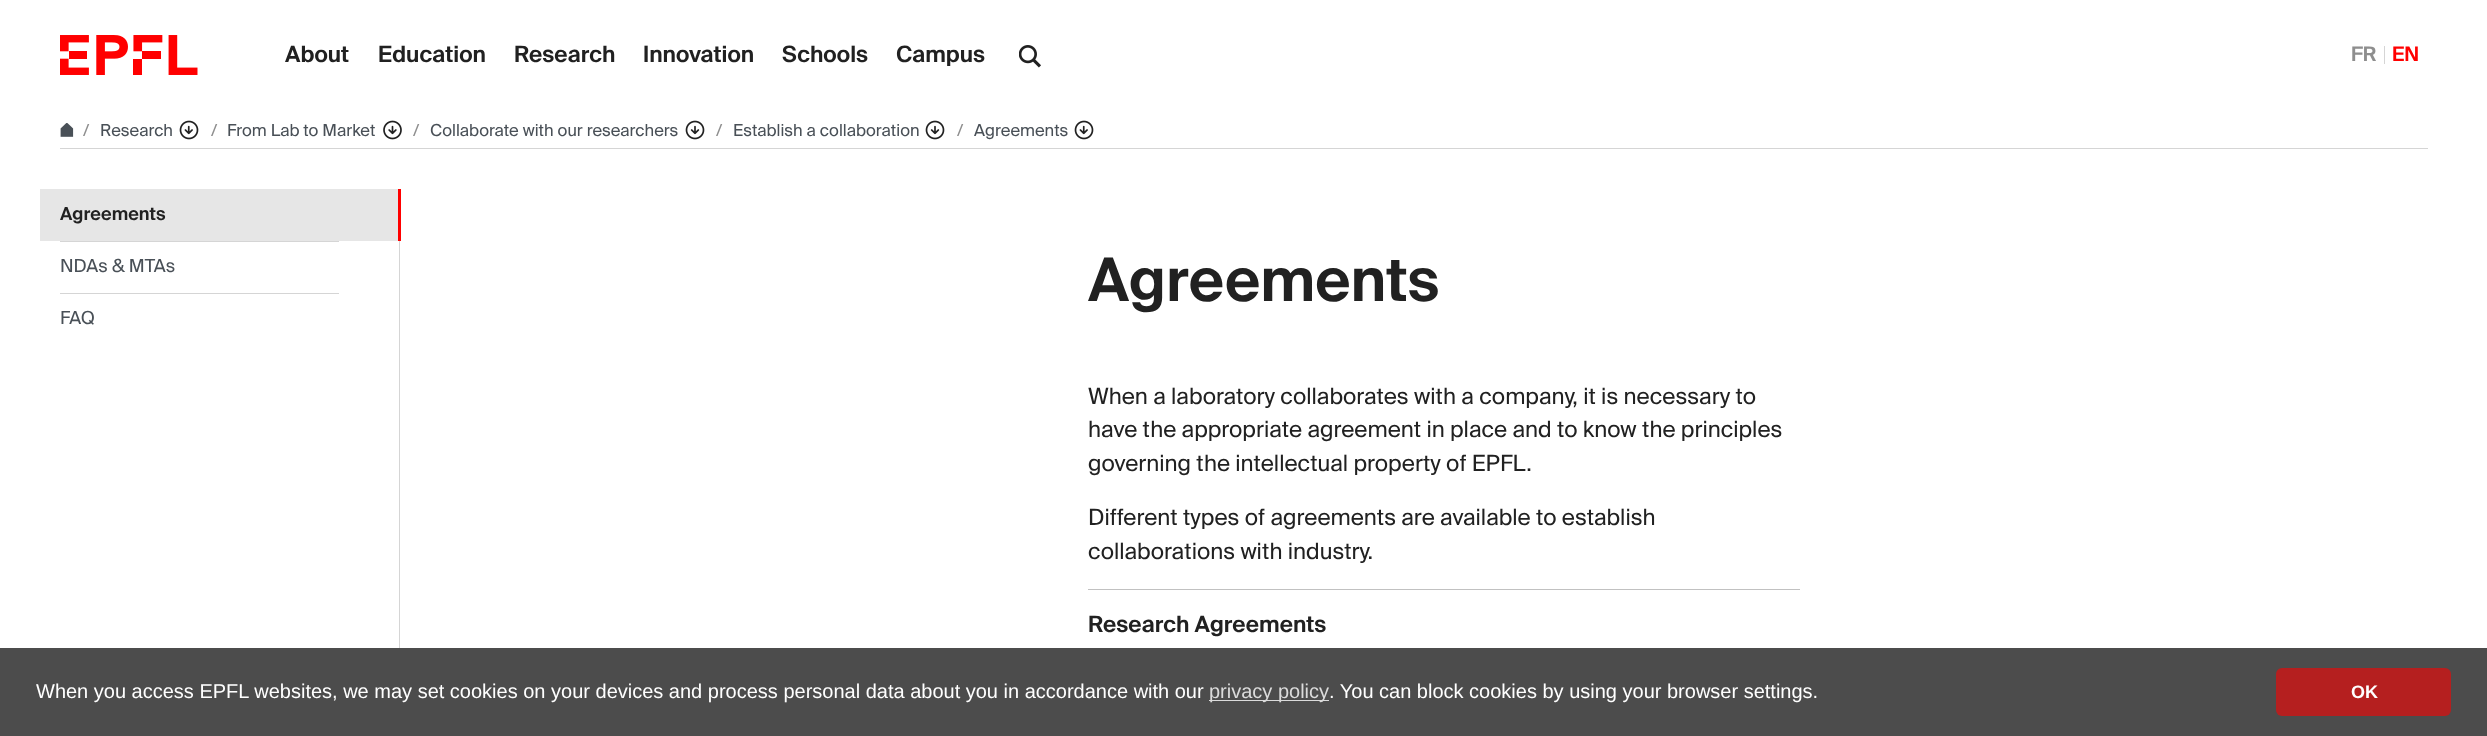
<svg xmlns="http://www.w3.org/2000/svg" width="2487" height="736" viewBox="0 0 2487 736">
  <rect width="100%" height="100%" fill="#fff"/>
  <path d="M0 648h2487v88H0z" fill="#4c4c4c"/>
  <image x="60" y="35" width="138" height="40" href="img/1.png"/>
  <image x="1019" y="45" width="22" height="23" href="img/2.png"/>
  <path d="M2384 46h1v18H2384z" fill="#d5d5d5"/>
  <path d="M60 148h2368v1H60z" fill="#d5d5d5"/>
  <image x="60" y="123" width="14" height="14" href="img/3.png"/>
  <image x="179" y="120" width="20" height="20" href="img/4.png"/>
  <image x="383" y="120" width="19" height="20" href="img/5.png"/>
  <image x="685" y="120" width="20" height="20" href="img/6.png"/>
  <image x="925" y="120" width="20" height="20" href="img/6.png"/>
  <image x="1074" y="120" width="20" height="20" href="img/4.png"/>
  <path d="M399 241h1v407H399z" fill="#d5d5d5"/>
  <path d="M40 189h358v52H40z" fill="#e6e6e6"/>
  <path d="M398 189h3v52H398z" fill="#f00"/>
  <path d="M60 241h279v1H60z" fill="#d5d5d5"/>
  <path d="M60 293h279v1H60z" fill="#d5d5d5"/>
  <path d="M1088 589h712v1H1088z" fill="#c1c1c1"/>
  <path d="M1209 700h120v1H1209z" fill="#ffffffcc"/>
  <rect x="2276" y="668" width="175" height="48" rx="6" fill="#b51f1f"/>
  <g font-family="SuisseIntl" font-size="22.5" font-weight="600" fill="#212121">
    <text x="285" y="62">About</text>
    <text x="378" y="62">Education</text>
    <text x="514" y="62">Research</text>
    <text x="643" y="62">Innovation</text>
    <text x="782" y="62">Schools</text>
    <text x="896" y="62">Campus</text>
  </g>
  <text x="2351" y="61" font-family="SuisseIntl" font-size="20" font-weight="600" fill="#8e8e8e">FR</text>
  <text x="2392" y="61" font-family="SuisseIntl" font-size="20" font-weight="600" fill="#f00">EN</text>
  <text x="83" y="136" font-family="SuisseIntl" font-size="16.6" fill="#8e8e8e">/</text>
  <text x="100" y="136" font-family="SuisseIntl" font-size="16.6" fill="#495057">Research</text>
  <text x="211" y="136" font-family="SuisseIntl" font-size="16.6" fill="#8e8e8e">/</text>
  <text x="227" y="136" font-family="SuisseIntl" font-size="16.6" fill="#495057">From Lab to Market</text>
  <text x="413" y="136" font-family="SuisseIntl" font-size="16.6" fill="#8e8e8e">/</text>
  <text x="430" y="136" font-family="SuisseIntl" font-size="16.6" fill="#495057">Collaborate with our researchers</text>
  <text x="716" y="136" font-family="SuisseIntl" font-size="16.6" fill="#8e8e8e">/</text>
  <text x="733" y="136" font-family="SuisseIntl" font-size="16.6" fill="#495057">Establish a collaboration</text>
  <text x="957" y="136" font-family="SuisseIntl" font-size="16.6" fill="#8e8e8e">/</text>
  <text x="974" y="136" font-family="SuisseIntl" font-size="16.6" fill="#495057">Agreements</text>
  <text x="60" y="220" font-family="SuisseIntl" font-size="18" font-weight="600" fill="#212121">Agreements</text>
  <g font-family="SuisseIntl" font-size="18" fill="#495057">
    <text x="60" y="272">NDAs &amp; MTAs</text>
    <text x="60" y="324">FAQ</text>
  </g>
  <text x="1088" y="301" font-family="SuisseIntl" font-size="60" font-weight="600" fill="#212121">Agreements</text>
  <g font-family="SuisseIntl" font-size="22.5" fill="#212121">
    <text x="1088" y="404">When a laboratory collaborates with a company, it is necessary to</text>
    <text x="1088" y="437">have the appropriate agreement in place and to know the principles</text>
    <text x="1088" y="471">governing the intellectual property of EPFL.</text>
    <text x="1088" y="525">Different types of agreements are available to establish</text>
    <text x="1088" y="559">collaborations with industry.</text>
  </g>
  <text x="1088" y="632" font-family="SuisseIntl" font-size="22.5" font-weight="600" fill="#212121">Research Agreements</text>
  <text x="36" y="698" font-family="Liberation Sans" font-size="20" fill="#fff">When you access EPFL websites, we may set cookies on your devices and process personal data about you in accordance with our</text>
  <text x="1209" y="698" font-family="Liberation Sans" font-size="20" fill="#dbdbdb">privacy policy</text>
  <text x="1329" y="698" font-family="Liberation Sans" font-size="20" fill="#fff">. You can block cookies by using your browser settings.</text>
  <text x="2351" y="698" font-family="Liberation Sans" font-size="18" font-weight="bold" fill="#fff">OK</text>
</svg>
